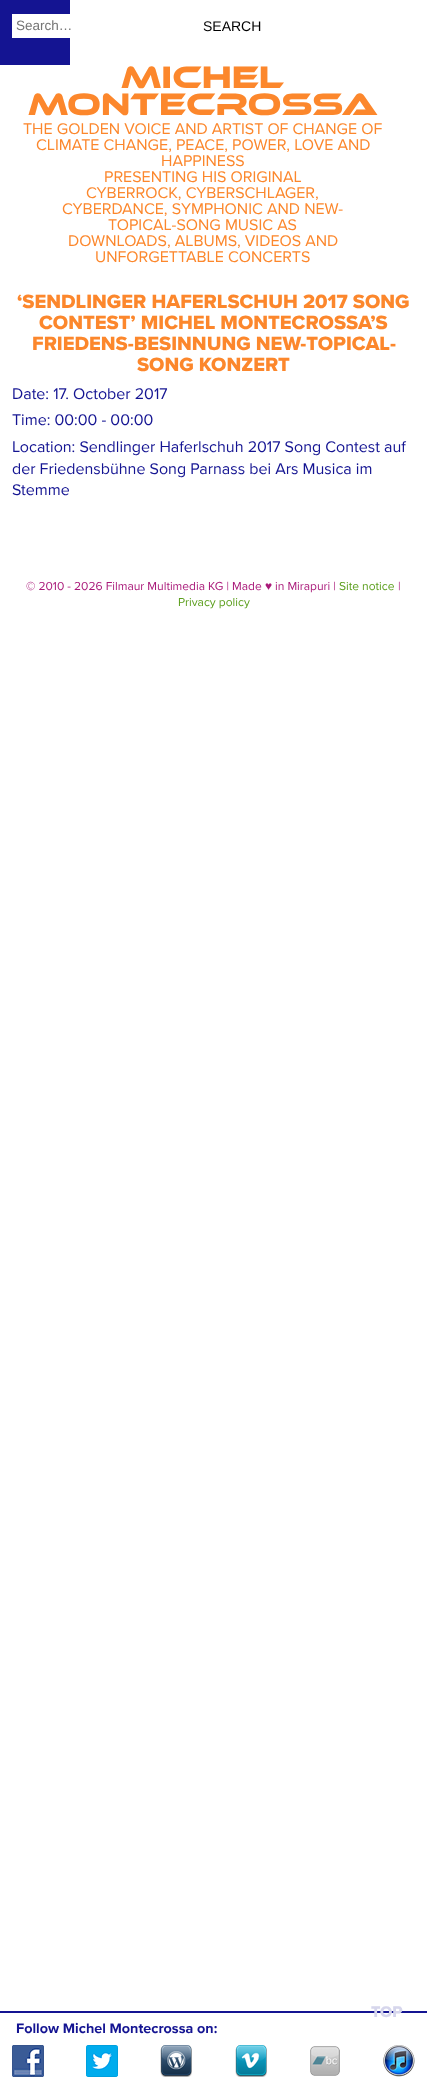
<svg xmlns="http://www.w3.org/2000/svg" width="427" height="2085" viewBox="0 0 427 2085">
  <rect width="100%" height="100%" fill="#fff"/>
  <path d="M0 0h70v65H0z" fill="#141492"/>
  <path d="M12 14h58v24H12z" fill="#fff"/>
  <path d="M0 2011h427v2H0z" fill="#141492"/>
  <image x="12" y="2045" width="32" height="32" href="img/1.png"/>
  <image x="86" y="2045" width="32" height="32" href="img/2.png"/>
  <image x="160" y="2045" width="32" height="32" href="img/3.png"/>
  <image x="235" y="2045" width="32" height="32" href="img/4.png"/>
  <image x="310" y="2046" width="30" height="30" href="img/5.png"/>
  <image x="383" y="2045" width="32" height="32" href="img/6.png"/>
  <text x="16" y="30" font-family="Liberation Sans" font-size="13.5" fill="#757575">Search…</text>
  <text x="203" y="31" font-family="Liberation Sans" font-size="14" fill="#000">SEARCH</text>
  <g font-family="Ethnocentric" font-size="32" fill="#fc872c">
    <text x="121" y="88">MICHEL</text>
    <text x="28" y="115">MONTECROSSA</text>
  </g>
  <g font-family="Proxima Nova" font-size="16" fill="#fc872c">
    <text x="23" y="134">THE GOLDEN VOICE AND ARTIST OF CHANGE OF</text>
    <text x="36" y="150">CLIMATE CHANGE, PEACE, POWER, LOVE AND</text>
    <text x="161" y="166">HAPPINESS</text>
    <text x="104" y="182">PRESENTING HIS ORIGINAL</text>
    <text x="86" y="198">CYBERROCK, CYBERSCHLAGER,</text>
    <text x="62" y="214">CYBERDANCE, SYMPHONIC AND NEW-</text>
    <text x="108" y="230">TOPICAL-SONG MUSIC AS</text>
    <text x="68" y="246">DOWNLOADS, ALBUMS, VIDEOS AND</text>
    <text x="95" y="262">UNFORGETTABLE CONCERTS</text>
  </g>
  <g font-family="Proxima Nova" font-size="20" font-weight="800" fill="#fc872c">
    <text x="17" y="308">‘SENDLINGER HAFERLSCHUH 2017 SONG</text>
    <text x="39" y="329">CONTEST’ MICHEL MONTECROSSA’S</text>
    <text x="32" y="350">FRIEDENS-BESINNUNG NEW-TOPICAL-</text>
    <text x="137" y="371">SONG KONZERT</text>
  </g>
  <g font-family="Proxima Nova" font-size="16" fill="#141492">
    <text x="12" y="399">Date: 17. October 2017</text>
    <text x="12" y="425">Time: 00:00 - 00:00</text>
    <text x="12" y="452">Location: Sendlinger Haferlschuh 2017 Song Contest auf</text>
    <text x="12" y="474">der Friedensbühne Song Parnass bei Ars Musica im</text>
    <text x="12" y="495">Stemme</text>
  </g>
  <text x="26" y="590" font-family="Proxima Nova" font-size="12" fill="#a91979">© 2010 - 2026 Filmaur Multimedia KG | Made</text>
  <text x="265" y="590" font-family="Liberation Sans" font-size="12" fill="#a91979">♥</text>
  <text x="275" y="590" font-family="Proxima Nova" font-size="12" fill="#a91979">in Mirapuri |</text>
  <text x="339" y="590" font-family="Proxima Nova" font-size="12" fill="#5b9e1c">Site notice</text>
  <text x="398" y="590" font-family="Proxima Nova" font-size="12" fill="#a91979">|</text>
  <text x="178" y="606" font-family="Proxima Nova" font-size="12" fill="#5b9e1c">Privacy policy</text>
  <text x="371" y="2017" font-family="Proxima Nova" font-size="16" font-weight="800" fill="#d6d6ec">TOP</text>
  <text x="16" y="2033" font-family="Proxima Nova" font-size="14.4" font-weight="bold" fill="#141492">Follow Michel Montecrossa on:</text>
</svg>
